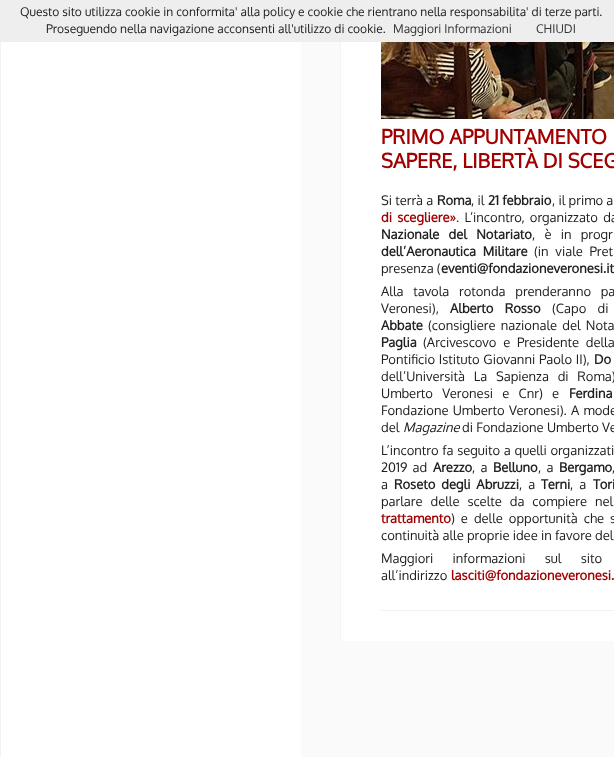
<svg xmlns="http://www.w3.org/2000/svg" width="614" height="757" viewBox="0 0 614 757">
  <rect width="100%" height="100%" fill="#fafafa"/>
  <path d="M0.5 -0.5h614v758H0.5z" fill="none" stroke="#f2f2f2"/>
  <path d="M0 0h614v42H0z" fill="#eee"/>
  <path d="M1 42h300v715H1z" fill="#fff"/>
  <path d="M341 42h273v599H341z" fill="#fff"/>
  <path d="M340 42h1v599H340z" fill="#f2f2f2"/>
  <image x="381" y="42" width="233" height="77" href="img/1.png"/>
  <path d="M381 610h233v1H381z" fill="#f2f2f2"/>
  <g font-family="Oxygen" font-size="12" fill="#212121">
    <text x="20" y="16">Questo sito utilizza cookie in conformita' alla policy e cookie che rientrano nella responsabilita' di terze parti.</text>
    <text x="46" y="33">Proseguendo nella navigazione acconsenti all'utilizzo di cookie.</text>
  </g>
  <g font-family="Oxygen" font-size="12" fill="#333">
    <text x="393" y="33">Maggiori Informazioni</text>
    <text x="536" y="33">CHIUDI</text>
  </g>
  <g font-family="Oxygen" font-size="20" font-weight="bold" fill="#a00000">
    <text x="381" y="144">PRIMO APPUNTAMENTO</text>
    <text x="381" y="168">SAPERE, LIBERTÀ DI SCEG</text>
  </g>
  <text x="381" y="205" font-family="Oxygen" font-size="13" fill="#212121">Si terrà a</text>
  <text x="437" y="205" font-family="Oxygen" font-size="13" font-weight="bold" fill="#212121">Roma</text>
  <text x="471" y="205" font-family="Oxygen" font-size="13" fill="#212121">, il</text>
  <text x="488" y="205" font-family="Oxygen" font-size="13" font-weight="bold" fill="#212121">21 febbraio</text>
  <text x="552" y="205" font-family="Oxygen" font-size="13" fill="#212121">, il primo a</text>
  <text x="381" y="222" word-spacing="2" font-family="Oxygen" font-size="13" font-weight="bold" fill="#a00000">di scegliere»</text>
  <text x="456" y="222" word-spacing="2" font-family="Oxygen" font-size="13" fill="#212121">. L’incontro, organizzato da</text>
  <text x="381" y="239" word-spacing="6" font-family="Oxygen" font-size="13" font-weight="bold" fill="#212121">Nazionale del Notariato</text>
  <text x="532" y="239" word-spacing="6" font-family="Oxygen" font-size="13" fill="#212121">, è in progr</text>
  <text x="381" y="256" word-spacing="3.5" font-family="Oxygen" font-size="13" font-weight="bold" fill="#212121">dell’Aeronautica Militare</text>
  <g font-family="Oxygen" font-size="13" fill="#212121">
    <text x="534" y="256" word-spacing="3.5">(in viale Pret</text>
    <text x="381" y="273">presenza (</text>
  </g>
  <text x="441" y="273" font-family="Oxygen" font-size="13" font-weight="bold" fill="#212121">eventi@fondazioneveronesi.it</text>
  <g font-family="Oxygen" font-size="13" fill="#212121">
    <text x="381" y="296" word-spacing="6.5">Alla tavola rotonda prenderanno pa</text>
    <text x="381" y="313">Veronesi),</text>
  </g>
  <text x="450" y="313" word-spacing="8" font-family="Oxygen" font-size="13" font-weight="bold" fill="#212121">Alberto Rosso</text>
  <text x="552" y="313" word-spacing="8" font-family="Oxygen" font-size="13" fill="#212121">(Capo di</text>
  <text x="381" y="330" font-family="Oxygen" font-size="13" font-weight="bold" fill="#212121">Abbate</text>
  <text x="428" y="330" word-spacing="2" font-family="Oxygen" font-size="13" fill="#212121">(consigliere nazionale del Nota</text>
  <text x="381" y="347" font-family="Oxygen" font-size="13" font-weight="bold" fill="#212121">Paglia</text>
  <g font-family="Oxygen" font-size="13" fill="#212121">
    <text x="423" y="347" word-spacing="3.5">(Arcivescovo e Presidente della</text>
    <text x="381" y="364" word-spacing="0.5">Pontificio Istituto Giovanni Paolo II),</text>
  </g>
  <text x="594" y="364" word-spacing="0.5" font-family="Oxygen" font-size="13" font-weight="bold" fill="#212121">Do</text>
  <g font-family="Oxygen" font-size="13" fill="#212121">
    <text x="381" y="381" word-spacing="5.5">dell’Università La Sapienza di Roma)</text>
    <text x="381" y="398" word-spacing="6">Umberto Veronesi e Cnr) e</text>
  </g>
  <text x="569" y="398" word-spacing="6" font-family="Oxygen" font-size="13" font-weight="bold" fill="#212121">Ferdina</text>
  <g font-family="Oxygen" font-size="13" fill="#212121">
    <text x="381" y="415" word-spacing="1">Fondazione Umberto Veronesi). A mode</text>
    <text x="381" y="432">del</text>
  </g>
  <text x="403" y="432" font-family="Oxygen" font-size="13" font-style="italic" fill="#212121">Magazine</text>
  <g font-family="Oxygen" font-size="13" fill="#212121">
    <text x="462" y="432">di Fondazione Umberto Ve</text>
    <text x="381" y="455" word-spacing="0.5">L’incontro fa seguito a quelli organizzati</text>
    <text x="381" y="472" word-spacing="2">2019 ad</text>
  </g>
  <text x="433" y="472" font-family="Oxygen" font-size="13" font-weight="bold" fill="#212121">Arezzo</text>
  <text x="472" y="472" word-spacing="2" font-family="Oxygen" font-size="13" fill="#212121">, a</text>
  <text x="493" y="472" font-family="Oxygen" font-size="13" font-weight="bold" fill="#212121">Belluno</text>
  <text x="538" y="472" word-spacing="2" font-family="Oxygen" font-size="13" fill="#212121">, a</text>
  <text x="559" y="472" font-family="Oxygen" font-size="13" font-weight="bold" fill="#212121">Bergamo</text>
  <g font-family="Oxygen" font-size="13" fill="#212121">
    <text x="612" y="472" word-spacing="2">,</text>
    <text x="381" y="489">a</text>
  </g>
  <text x="394" y="489" word-spacing="2.75" font-family="Oxygen" font-size="13" font-weight="bold" fill="#212121">Roseto degli Abruzzi</text>
  <text x="519" y="489" word-spacing="2.75" font-family="Oxygen" font-size="13" fill="#212121">, a</text>
  <text x="541" y="489" font-family="Oxygen" font-size="13" font-weight="bold" fill="#212121">Terni</text>
  <text x="570" y="489" word-spacing="2.75" font-family="Oxygen" font-size="13" fill="#212121">, a</text>
  <text x="593" y="489" font-family="Oxygen" font-size="13" font-weight="bold" fill="#212121">Tori</text>
  <text x="381" y="506" word-spacing="4.75" font-family="Oxygen" font-size="13" fill="#212121">parlare delle scelte da compiere nel</text>
  <text x="381" y="523" font-family="Oxygen" font-size="13" font-weight="bold" fill="#a00000">trattamento</text>
  <g font-family="Oxygen" font-size="13" fill="#212121">
    <text x="451" y="523" word-spacing="2.75">) e delle opportunità che s</text>
    <text x="381" y="540">continuità alle proprie idee in favore del</text>
    <text x="381" y="563" word-spacing="16">Maggiori informazioni sul sito</text>
    <text x="381" y="580">all’indirizzo</text>
  </g>
  <text x="451" y="580" font-family="Oxygen" font-size="13" font-weight="bold" fill="#a00000">lasciti@fondazioneveronesi.</text>
</svg>
